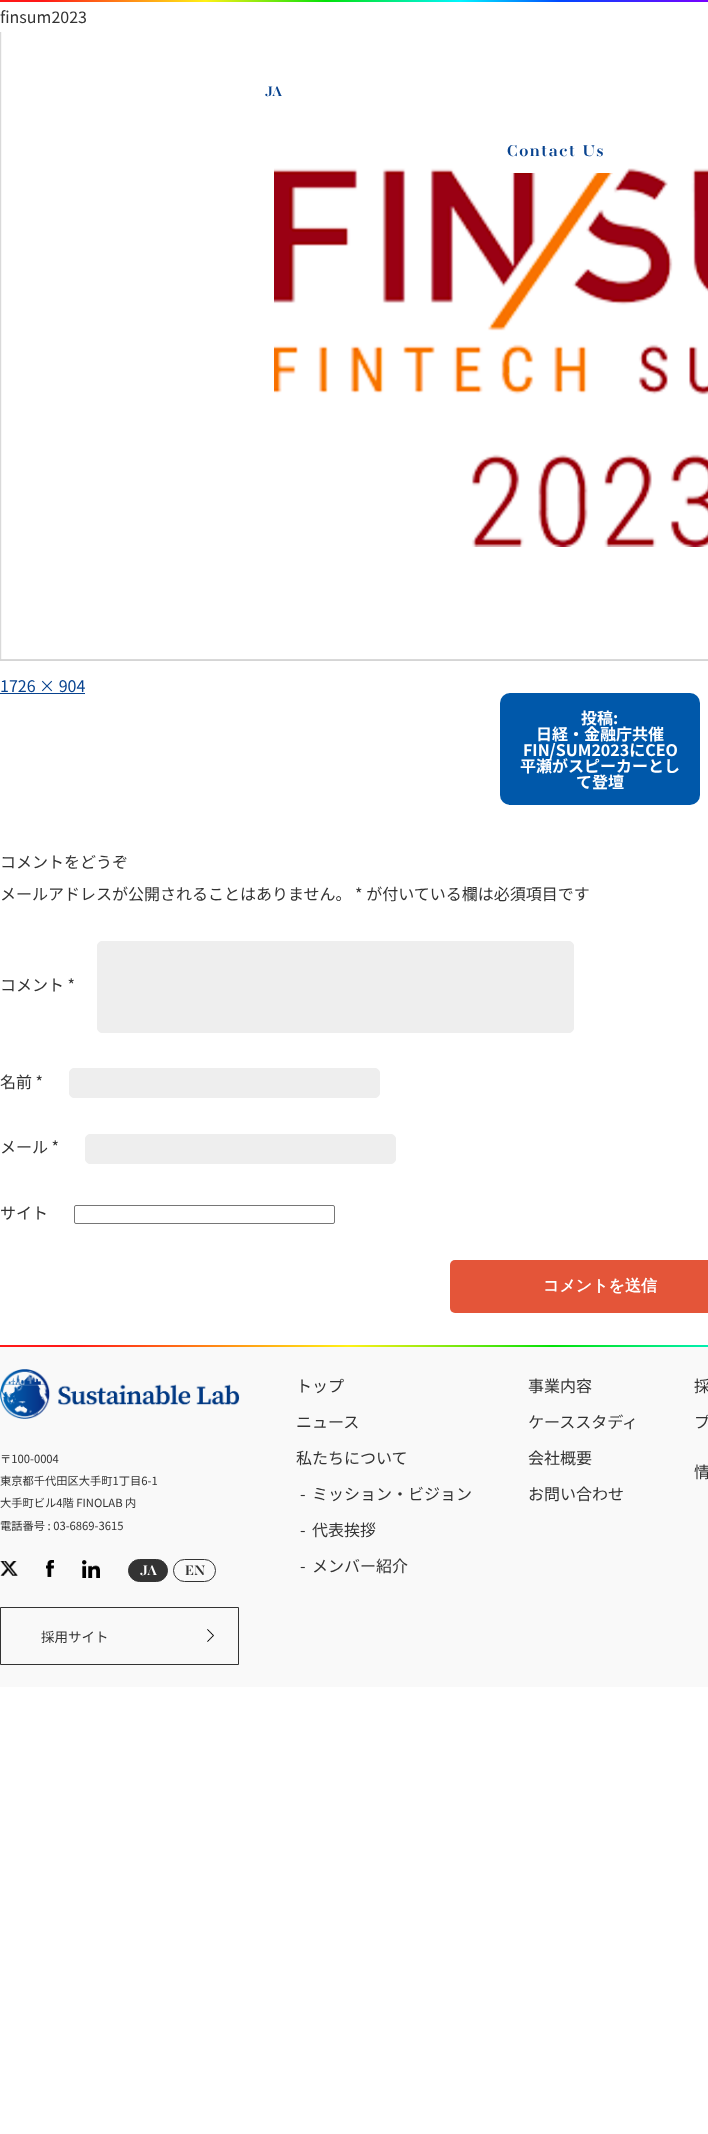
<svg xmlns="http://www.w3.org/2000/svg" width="708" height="2134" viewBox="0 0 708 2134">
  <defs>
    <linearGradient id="g1" gradientUnits="userSpaceOnUse" x1="0" y1="1" x2="708" y2="1"><stop offset="0.06" stop-color="#ff1818"/><stop offset="0.29" stop-color="#fff115"/><stop offset="0.46" stop-color="#03e108"/><stop offset="0.65" stop-color="#00f6ff"/><stop offset="0.79" stop-color="#0048ff"/><stop offset="1" stop-color="#7800ff"/></linearGradient>
    <linearGradient id="g2" gradientUnits="userSpaceOnUse" x1="0" y1="1346" x2="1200" y2="1346"><stop offset="0.06" stop-color="#ff1818"/><stop offset="0.29" stop-color="#fff115"/><stop offset="0.46" stop-color="#03e108"/><stop offset="0.65" stop-color="#00f6ff"/><stop offset="0.79" stop-color="#0048ff"/><stop offset="1" stop-color="#7800ff"/></linearGradient>
  </defs>
  <rect width="100%" height="100%" fill="#fff"/>
  <image x="0" y="32" width="708" height="629" href="img/1.png"/>
  <path d="M0 693h85v1H0z" fill="#08438f"/>
  <rect x="500" y="693" width="200" height="112" rx="10" fill="#0058aa"/>
  <rect x="97.5" y="941.5" width="476" height="91" rx="4.5" fill="#eee" stroke="#eee"/>
  <rect x="69.5" y="1068.5" width="310" height="29" rx="4.5" fill="#eee" stroke="#eee"/>
  <rect x="85.5" y="1134.5" width="310" height="29" rx="4.5" fill="#eee" stroke="#eee"/>
  <rect x="74.5" y="1205.5" width="260" height="18" rx="1.5" fill="none" stroke="#767676"/>
  <rect x="450" y="1260" width="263" height="53" rx="5" fill="#e45539"/>
  <path d="M0 0h708v2H0z" fill="url(#g1)"/>
  <rect x="475" y="128" width="162" height="45" rx="22.5" fill="#fff"/>
  <path d="M0 1347h708v340H0z" fill="#f9f9f9"/>
  <path d="M0 1345h708v2H0z" fill="url(#g2)"/>
  <image x="0" y="1369" width="240" height="50" href="img/2.png"/>
  <image x="0" y="1561" width="18" height="15" href="img/3.png"/>
  <image x="46" y="1560" width="8" height="17" href="img/4.png"/>
  <image x="82" y="1560" width="18" height="18" href="img/5.png"/>
  <rect x="128.5" y="1559.5" width="39" height="22" rx="11" fill="#333" stroke="#333"/>
  <rect x="173.5" y="1559.5" width="42" height="22" rx="11" fill="none" stroke="#333"/>
  <image x="207" y="1629" width="7" height="13" href="img/6.png"/>
  <path d="M0.5 1607.5h238v57H0.5z" fill="none" stroke="#333"/>
  <text x="0" y="23" font-family="Noto Sans JP" font-size="16" fill="#333">finsum2023</text>
  <text x="0" y="692" font-family="Noto Sans JP" font-size="16" fill="#08438f">1726 × 904</text>
  <g font-family="Noto Sans JP" font-size="16" font-weight="bold" fill="#fff">
    <text x="581" y="724">投稿:</text>
    <text x="536" y="740">日経・金融庁共催</text>
    <text x="523" y="756">FIN/SUM2023にCEO</text>
    <text x="520" y="772">平瀬がスピーカーとし</text>
    <text x="576" y="788">て登壇</text>
  </g>
  <g font-family="Noto Sans JP" font-size="16" fill="#333">
    <text x="0" y="868">コメントをどうぞ</text>
    <text x="0" y="900">メールアドレスが公開されることはありません。 * が付いている欄は必須項目です</text>
    <text x="0" y="991">コメント *</text>
    <text x="0" y="1088">名前 *</text>
    <text x="0" y="1153">メール *</text>
    <text x="0" y="1219">サイト</text>
  </g>
  <text x="543" y="1291" font-family="WenQuanYi Zen Hei" font-size="16" font-weight="bold" fill="#fff">コメントを送信</text>
  <text x="265" y="96" font-family="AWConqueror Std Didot" font-size="14" font-weight="bold" fill="#08438f">JA</text>
  <text x="507" y="156" font-family="AWConqueror Std Didot" font-size="16" font-weight="bold" letter-spacing="1.6" fill="#08438f">Contact Us</text>
  <g font-family="Noto Sans JP" font-size="11.25" fill="#333">
    <text x="0" y="1463">〒100-0004</text>
    <text x="0" y="1485">東京都千代田区大手町1丁目6-1</text>
    <text x="0" y="1507">大手町ビル4階 FINOLAB 内</text>
    <text x="0" y="1530">電話番号 : 03-6869-3615</text>
  </g>
  <text x="140" y="1575" font-family="AWConqueror Std Didot" font-size="14" font-weight="bold" fill="#fff">JA</text>
  <text x="185" y="1575" font-family="AWConqueror Std Didot" font-size="14" font-weight="bold" fill="#333">EN</text>
  <g font-family="Noto Sans JP" font-size="16" fill="#333">
    <text x="296" y="1392">トップ</text>
    <text x="296" y="1428">ニュース</text>
    <text x="296" y="1464">私たちについて</text>
    <text x="300" y="1500">-</text>
    <text x="312" y="1500">ミッション・ビジョン</text>
    <text x="300" y="1536">-</text>
    <text x="312" y="1536">代表挨拶</text>
    <text x="300" y="1572">-</text>
    <text x="312" y="1572">メンバー紹介</text>
    <text x="528" y="1392">事業内容</text>
    <text x="528" y="1428">ケーススタディ</text>
    <text x="528" y="1464">会社概要</text>
    <text x="528" y="1500">お問い合わせ</text>
    <text x="694" y="1392">採</text>
    <text x="694" y="1428">プ</text>
    <text x="694" y="1478">情</text>
  </g>
  <text x="41" y="1642" font-family="Noto Sans JP" font-size="13.5" fill="#333">採用サイト</text>
</svg>
